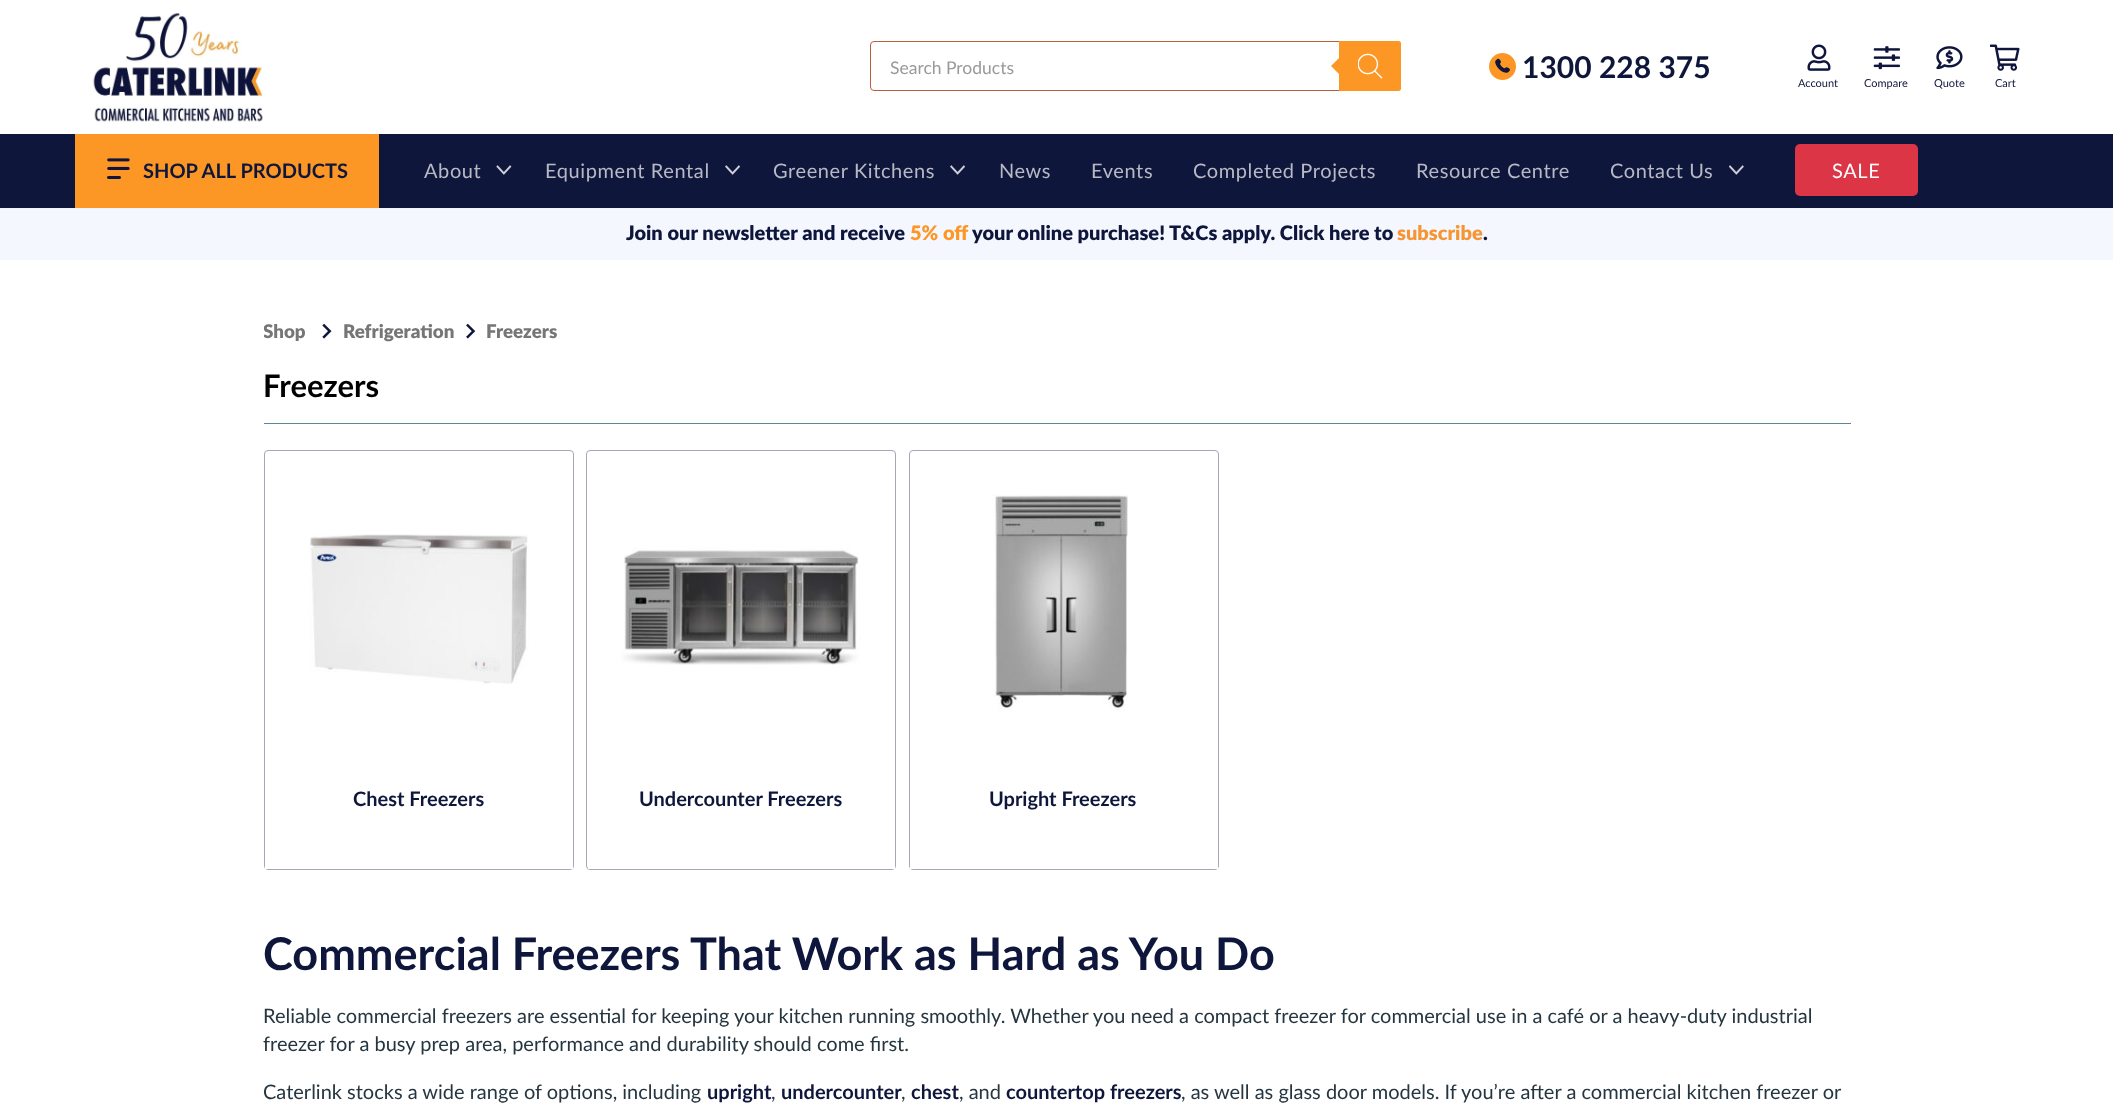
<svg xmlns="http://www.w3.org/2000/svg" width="2113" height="1109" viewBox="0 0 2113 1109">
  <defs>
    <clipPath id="clip1"><path d="M264 318h1587v30H264z"/></clipPath>
  </defs>
  <rect width="100%" height="100%" fill="#fff"/>
  <image x="93" y="12" width="170" height="110" href="img/1.png"/>
  <rect x="870.5" y="41.5" width="530" height="49" rx="3.5" fill="none" stroke="#bd5c3f"/>
  <path d="M1339 41H1398.5C1400 41 1401 42 1401 43.5V88.5C1401 90 1400 91 1398.5 91H1339Z" fill="#fc9725"/>
  <path d="M1341 56V76L1331 66Z" fill="#fc9725"/>
  <image x="1358" y="53" width="25" height="26" href="img/2.png"/>
  <image x="1489" y="53" width="27" height="27" href="img/3.png"/>
  <image x="1807" y="44" width="24" height="27" href="img/4.png"/>
  <image x="1873" y="46" width="27" height="24" href="img/5.png"/>
  <image x="1936" y="46" width="27" height="24" href="img/6.png"/>
  <image x="1990" y="44" width="30" height="27" href="img/7.png"/>
  <path d="M0 208h2113v1H0z" fill="#f4f4f4"/>
  <path d="M0 134h2113v74H0z" fill="#0f163b"/>
  <path d="M75 134h304v74H75z" fill="#fc9725"/>
  <image x="107" y="158" width="23" height="21" href="img/8.png"/>
  <image x="496" y="165" width="16" height="10" href="img/9.png"/>
  <image x="725" y="165" width="16" height="10" href="img/10.png"/>
  <image x="950" y="165" width="16" height="10" href="img/10.png"/>
  <image x="1729" y="165" width="15" height="10" href="img/11.png"/>
  <rect x="1795" y="144" width="123" height="52" rx="5" fill="#dc3545"/>
  <path d="M0 209h2113v51H0z" fill="#f5f7ff"/>
  <image x="322" y="323" width="10" height="16" href="img/12.png"/>
  <image x="466" y="323" width="10" height="16" href="img/13.png"/>
  <path d="M264 423h1587v1H264z" fill="#5b8899"/>
  <rect x="264.5" y="450.5" width="309" height="419" rx="3.5" fill="none" stroke="#a5a7b6"/>
  <image x="309" y="534" width="220" height="150" href="img/14.png"/>
  <path d="M265 866h308v3H265z" fill="#fff"/>
  <rect x="586.5" y="450.5" width="309" height="419" rx="3.5" fill="none" stroke="#a5a7b6"/>
  <image x="621" y="547" width="239" height="118" href="img/15.png"/>
  <path d="M588 866h307v3H588z" fill="#fff"/>
  <rect x="909.5" y="450.5" width="309" height="419" rx="3.5" fill="none" stroke="#a5a7b6"/>
  <image x="993" y="494" width="135" height="218" href="img/16.png"/>
  <path d="M910 866h308v3H910z" fill="#fff"/>
  <text x="890" y="74" font-family="Lato" font-size="17.5" fill="#999">Search Products</text>
  <text x="1522" y="78" font-family="Lato" font-size="30" font-weight="bold" fill="#0f163b">1300 228 375</text>
  <g font-family="Lato" font-size="11" fill="#0f163b">
    <text x="1798" y="87">Account</text>
    <text x="1864" y="87">Compare</text>
    <text x="1934" y="87">Quote</text>
    <text x="1995" y="87">Cart</text>
  </g>
  <text x="143" y="178" font-family="Lato" font-size="20" font-weight="bold" fill="#0f163b">SHOP ALL PRODUCTS</text>
  <g font-family="Lato" font-size="20" letter-spacing="0.6" fill="#b7b9c4">
    <text x="424" y="178">About</text>
    <text x="545" y="178">Equipment Rental</text>
    <text x="773" y="178">Greener Kitchens</text>
    <text x="999" y="178">News</text>
    <text x="1091" y="178">Events</text>
    <text x="1193" y="178">Completed Projects</text>
    <text x="1416" y="178">Resource Centre</text>
    <text x="1610" y="178">Contact Us</text>
  </g>
  <text x="1832" y="178" font-family="Lato" font-size="20" letter-spacing="0.6" fill="#fff">SALE</text>
  <text x="626" y="240" font-family="Lato" font-size="20" font-weight="900" fill="#0f163b">Join our newsletter and receive</text>
  <text x="910" y="240" font-family="Lato" font-size="20" font-weight="900" fill="#fc9725">5% off</text>
  <text x="972" y="240" font-family="Lato" font-size="20" font-weight="900" fill="#0f163b">your online purchase! T&amp;Cs apply. Click here to</text>
  <text x="1397" y="240" font-family="Lato" font-size="20" font-weight="900" fill="#f69533">subscribe</text>
  <text x="1483" y="240" font-family="Lato" font-size="20" font-weight="900" fill="#0f163b">.</text>
  <g clip-path="url(#clip1)">
    <text x="263" y="338" font-family="Lato" font-size="18.75" font-weight="900" fill="#767676">Shop</text>
  </g>
  <g font-family="Lato" font-size="18.75" font-weight="900" fill="#767676">
    <text x="343" y="338">Refrigeration</text>
    <text x="486" y="338">Freezers</text>
  </g>
  <text x="263" y="397" font-family="Lato" font-size="31" font-weight="bold" fill="#000">Freezers</text>
  <g font-family="Lato" font-size="20" font-weight="bold" fill="#0f163b">
    <text x="353" y="806">Chest Freezers</text>
    <text x="639" y="806">Undercounter Freezers</text>
    <text x="989" y="806">Upright Freezers</text>
  </g>
  <text x="263" y="970" font-family="Lato" font-size="45" font-weight="bold" fill="#0f163b">Commercial Freezers That Work as Hard as You Do</text>
  <g font-family="Lato" font-size="20" fill="#263640">
    <text x="263" y="1023">Reliable commercial freezers are essential for keeping your kitchen running smoothly. Whether you need a compact freezer for commercial use in a café or a heavy-duty industrial</text>
    <text x="263" y="1051">freezer for a busy prep area, performance and durability should come first.</text>
    <text x="263" y="1099">Caterlink stocks a wide range of options, including</text>
  </g>
  <text x="707" y="1099" font-family="Lato" font-size="20" font-weight="bold" fill="#0f163b">upright</text>
  <text x="771" y="1099" font-family="Lato" font-size="20" fill="#263640">,</text>
  <text x="781" y="1099" font-family="Lato" font-size="20" font-weight="bold" fill="#0f163b">undercounter</text>
  <text x="901" y="1099" font-family="Lato" font-size="20" fill="#263640">,</text>
  <text x="911" y="1099" font-family="Lato" font-size="20" font-weight="bold" fill="#0f163b">chest</text>
  <text x="959" y="1099" font-family="Lato" font-size="20" fill="#263640">, and</text>
  <text x="1006" y="1099" font-family="Lato" font-size="20" font-weight="bold" fill="#0f163b">countertop freezers</text>
  <text x="1181" y="1099" font-family="Lato" font-size="20" fill="#263640">, as well as glass door models. If you’re after a commercial kitchen freezer or</text>
</svg>
